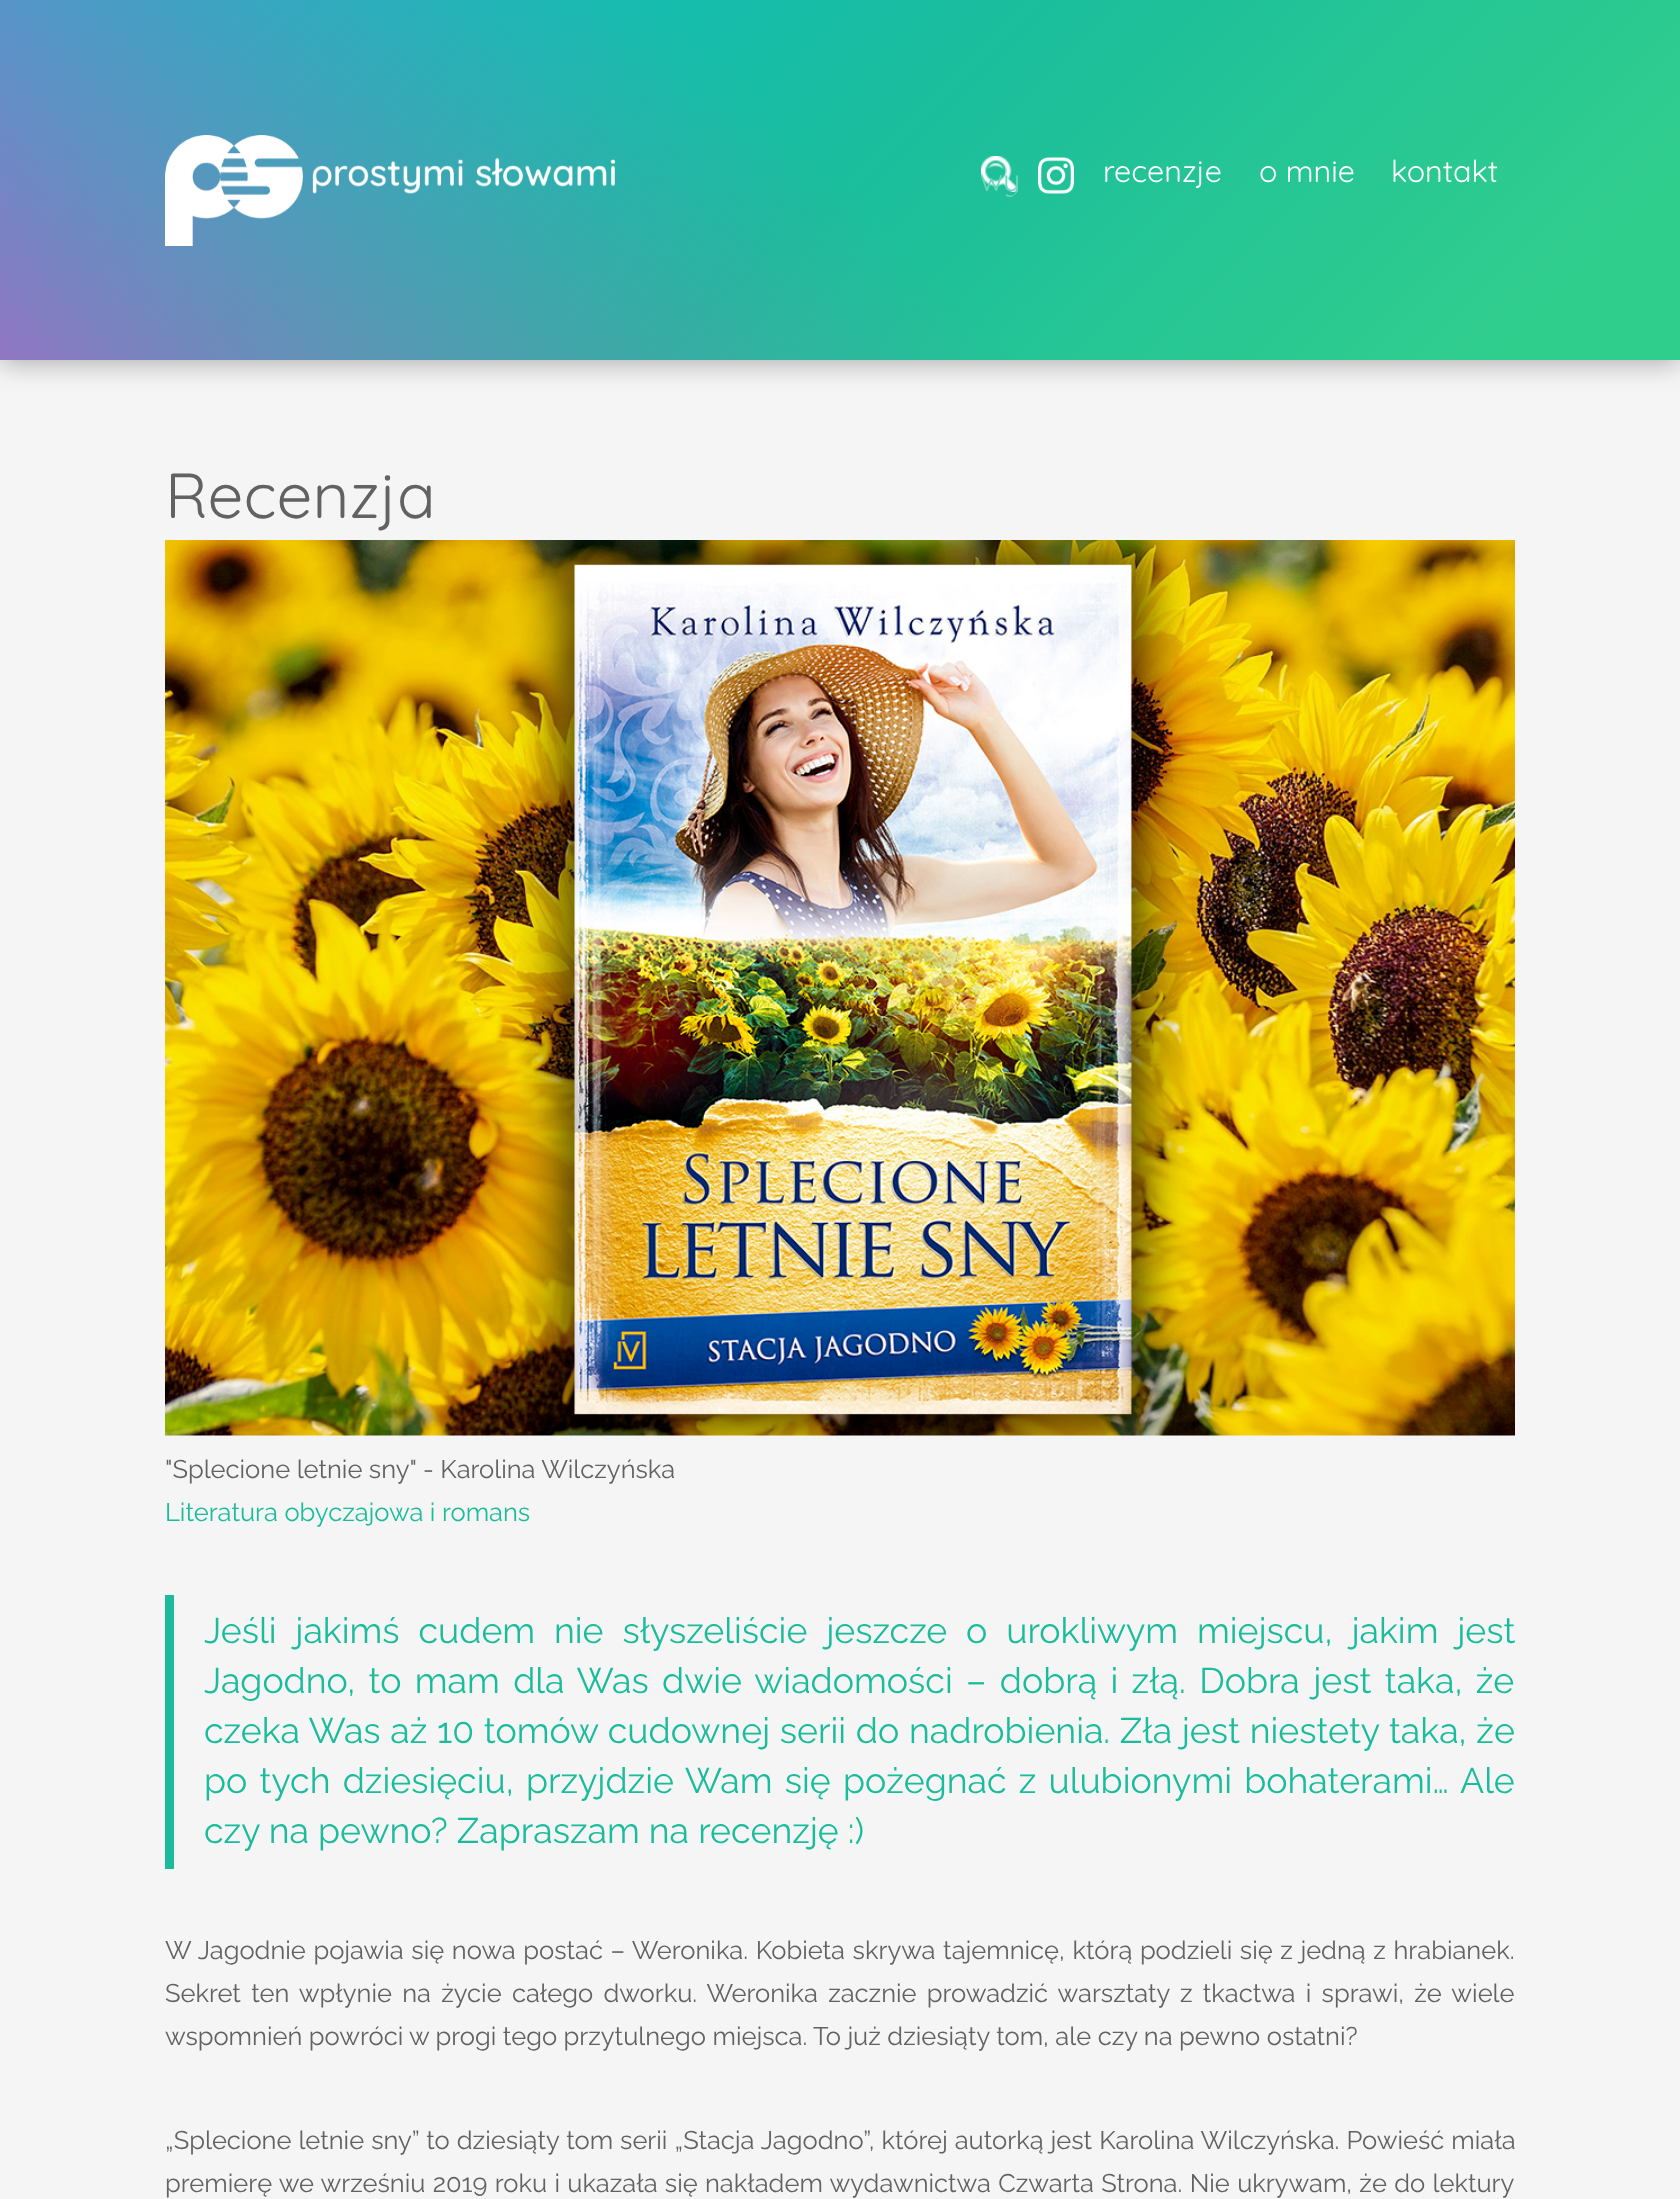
<svg xmlns="http://www.w3.org/2000/svg" width="1680" height="2199" viewBox="0 0 1680 2199">
  <defs>
    <linearGradient id="g1" gradientUnits="userSpaceOnUse" x1="330" y1="-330" x2="1350" y2="690"><stop offset="0" stop-color="#00baff"/><stop offset="0.5" stop-color="#1abe9d"/><stop offset="0.9" stop-color="#46df7f"/></linearGradient>
    <linearGradient id="g2" gradientUnits="userSpaceOnUse" x1="330" y1="690" x2="1350" y2="-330"><stop offset="0" stop-color="#ae67bf" stop-opacity="0.83"/><stop offset="0.5" stop-color="#1abc9c" stop-opacity="0.5"/></linearGradient>
    <clipPath id="clip1"><rect x="977" y="153" width="46" height="47" rx="23"/></clipPath>
  </defs>
  <rect width="100%" height="100%" fill="#f5f5f5"/>
  <path d="M0 3h1680v360H0z" fill="#0000004d" filter="blur(13.5px)"/>
  <path d="M0 0h1680v360H0z" fill="url(#g1)"/>
  <path d="M0 0h1680v360H0z" fill="url(#g2)"/>
  <image x="165" y="135" width="450" height="111" href="img/1.png"/>
  <image x="981" y="156" width="36" height="36" href="img/2.png"/>
  <image x="1038" y="157" width="36" height="37" href="img/3.png"/>
  <image x="165" y="540" width="1350" height="896" href="img/4.png"/>
  <path d="M165 1595h9v274H165z" fill="#1abc9c"/>
  <g clip-path="url(#clip1)">
    <text x="980" y="191" font-family="Quicksand" font-size="30.5" fill="#6dd6bd">wy</text>
  </g>
  <g font-family="Quicksand" font-size="30.5" fill="#fff">
    <text x="1103" y="182">recenzje</text>
    <text x="1259" y="182">o mnie</text>
    <text x="1391" y="182">kontakt</text>
  </g>
  <text x="165" y="518" font-family="Quicksand" font-size="63.75" fill="#626262">Recenzja</text>
  <text x="165" y="1478" font-family="Raleway" font-size="25.5" fill="#626262">"Splecione letnie sny" - Karolina Wilczyńska</text>
  <text x="165" y="1521" font-family="Raleway" font-size="25.5" fill="#1abc9c">Literatura obyczajowa i romans</text>
  <g font-family="Raleway" font-size="35.7" fill="#1abc9c">
    <text x="204" y="1643" word-spacing="9.75">Jeśli jakimś cudem nie słyszeliście jeszcze o urokliwym miejscu, jakim jest</text>
    <text x="204" y="1693" word-spacing="4.25">Jagodno, to mam dla Was dwie wiadomości – dobrą i złą. Dobra jest taka, że</text>
    <text x="204" y="1743" word-spacing="0.6">czeka Was aż 10 tomów cudownej serii do nadrobienia. Zła jest niestety taka, że</text>
    <text x="204" y="1793" word-spacing="3.1">po tych dziesięciu, przyjdzie Wam się pożegnać z ulubionymi bohaterami… Ale</text>
    <text x="204" y="1843">czy na pewno? Zapraszam na recenzję :)</text>
  </g>
  <g font-family="Raleway" font-size="25.5" fill="#626262">
    <text x="165" y="1959" word-spacing="1.1">W Jagodnie pojawia się nowa postać – Weronika. Kobieta skrywa tajemnicę, którą podzieli się z jedną z hrabianek.</text>
    <text x="165" y="2002" word-spacing="3.75">Sekret ten wpłynie na życie całego dworku. Weronika zacznie prowadzić warsztaty z tkactwa i sprawi, że wiele</text>
    <text x="165" y="2045">wspomnień powróci w progi tego przytulnego miejsca. To już dziesiąty tom, ale czy na pewno ostatni?</text>
    <text x="165" y="2149" word-spacing="0.5">„Splecione letnie sny” to dziesiąty tom serii „Stacja Jagodno”, której autorką jest Karolina Wilczyńska. Powieść miała</text>
    <text x="165" y="2192" word-spacing="0.8">premierę we wrześniu 2019 roku i ukazała się nakładem wydawnictwa Czwarta Strona. Nie ukrywam, że do lektury</text>
  </g>
</svg>
